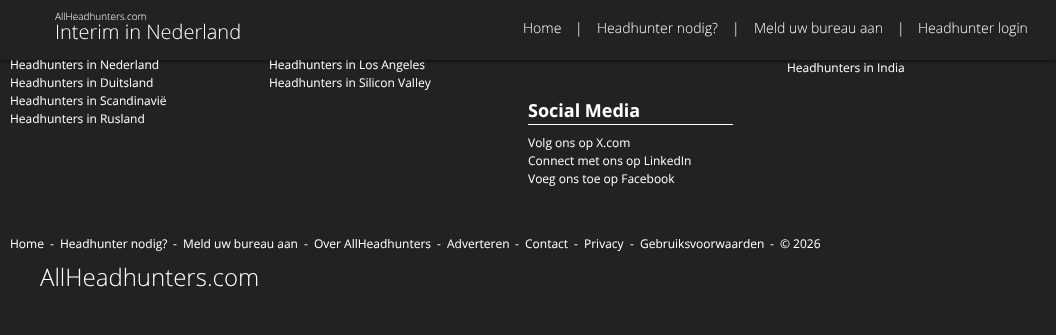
<svg xmlns="http://www.w3.org/2000/svg" width="1056" height="335" viewBox="0 0 1056 335">
  <rect width="100%" height="100%" fill="#222"/>
  <path d="M0 0h1056v60H0z" fill="#000" filter="blur(2px)"/>
  <path d="M528 124h205v1H528z" fill="#fff"/>
  <g font-family="Open Sans" font-size="12" fill="#fff">
    <text x="10" y="69">Headhunters in Nederland</text>
    <text x="10" y="87">Headhunters in Duitsland</text>
    <text x="10" y="105">Headhunters in Scandinavië</text>
    <text x="10" y="123">Headhunters in Rusland</text>
    <text x="269" y="69">Headhunters in Los Angeles</text>
  </g>
  <path d="M0 0h1056v60H0z" fill="#222"/>
  <text x="55" y="20" font-family="Open Sans" font-size="10" font-weight="300" fill="#fff">AllHeadhunters.com</text>
  <text x="55" y="39" font-family="Open Sans" font-size="20" font-weight="300" fill="#fff">Interim in Nederland</text>
  <g font-family="Open Sans" font-size="14" font-weight="300" fill="#fff">
    <text x="918" y="33">Headhunter login</text>
    <text x="897" y="33">|</text>
    <text x="754" y="33">Meld uw bureau aan</text>
    <text x="732" y="33">|</text>
    <text x="597" y="33">Headhunter nodig?</text>
    <text x="575" y="33">|</text>
    <text x="523" y="33">Home</text>
  </g>
  <g font-family="Open Sans" font-size="12" fill="#fff">
    <text x="269" y="87">Headhunters in Silicon Valley</text>
    <text x="787" y="72">Headhunters in India</text>
  </g>
  <text x="528" y="117" font-family="Open Sans" font-size="18" font-weight="bold" fill="#fff">Social Media</text>
  <g font-family="Open Sans" font-size="12" fill="#fff">
    <text x="528" y="147">Volg ons op X.com</text>
    <text x="528" y="165">Connect met ons op LinkedIn</text>
    <text x="528" y="183">Voeg ons toe op Facebook</text>
    <text x="10" y="248">Home</text>
    <text x="50" y="248">-</text>
    <text x="60" y="248">Headhunter nodig?</text>
    <text x="173" y="248">-</text>
    <text x="183" y="248">Meld uw bureau aan</text>
    <text x="304" y="248">-</text>
    <text x="314" y="248">Over AllHeadhunters</text>
    <text x="437" y="248">-</text>
    <text x="447" y="248">Adverteren</text>
    <text x="515" y="248">-</text>
    <text x="525" y="248">Contact</text>
    <text x="574" y="248">-</text>
    <text x="584" y="248">Privacy</text>
    <text x="630" y="248">-</text>
    <text x="640" y="248">Gebruiksvoorwaarden</text>
    <text x="770" y="248">-</text>
    <text x="780" y="248">© 2026</text>
  </g>
  <text x="40" y="286" font-family="Open Sans" font-size="24" font-weight="300" fill="#fff">AllHeadhunters.com</text>
</svg>
